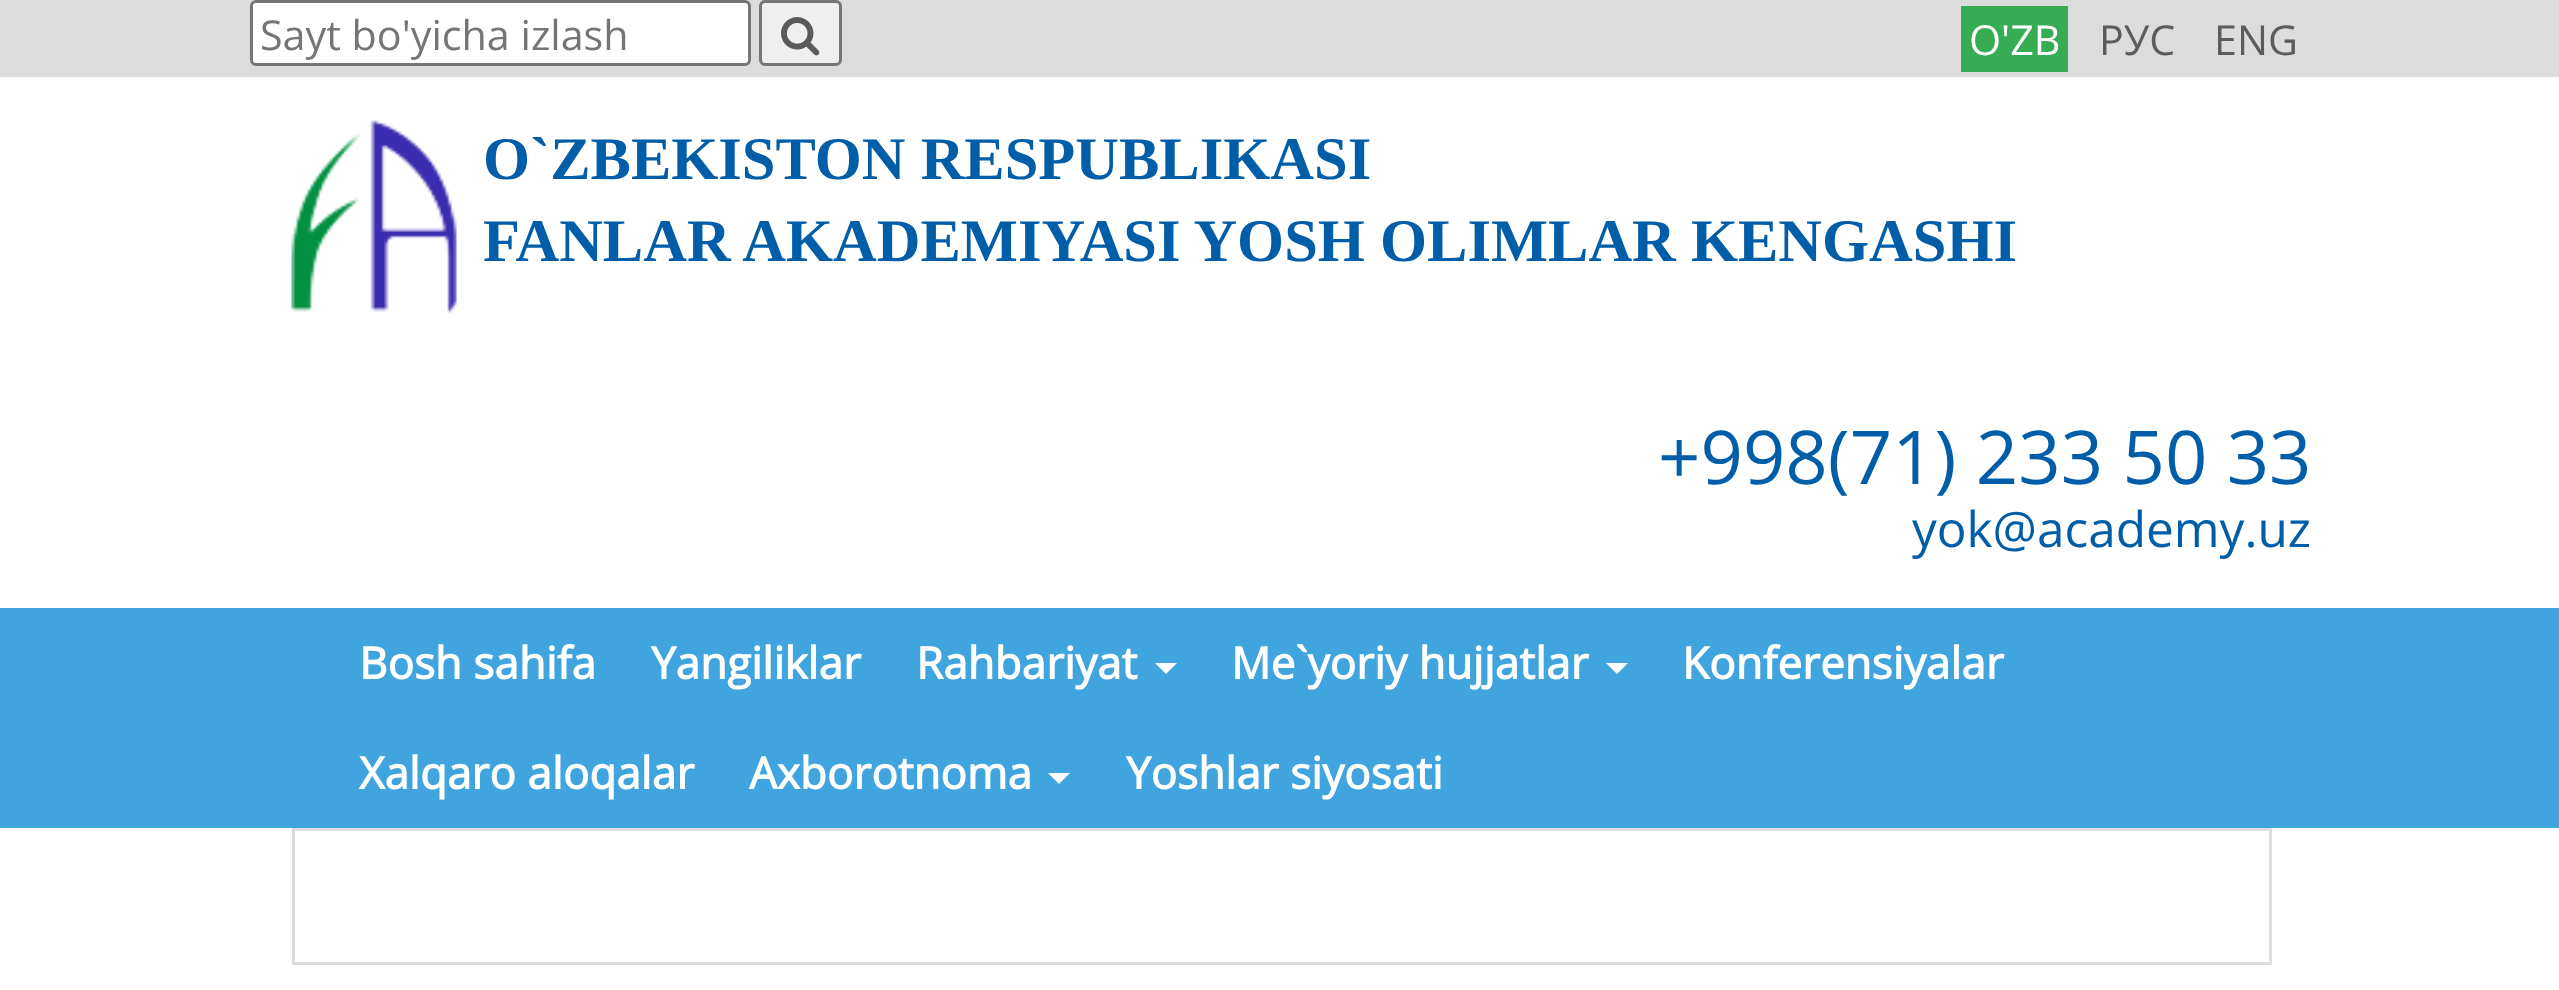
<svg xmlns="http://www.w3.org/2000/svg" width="2559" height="990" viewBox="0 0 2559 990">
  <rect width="100%" height="100%" fill="#fff"/>
  <path d="M0 0h2559v77H0z" fill="#dcdcdc"/>
  <rect x="251.5" y="1.5" width="498" height="63" rx="4.5" fill="#fff" stroke="#767676" stroke-width="3"/>
  <rect x="760.5" y="1.5" width="80" height="63" rx="4.5" fill="#efefef" stroke="#767676" stroke-width="3"/>
  <image x="781" y="17" width="39" height="39" href="img/1.png"/>
  <path d="M1961 6h107v66H1961z" fill="#36ac54"/>
  <image x="291" y="120" width="166" height="194" href="img/2.png"/>
  <path d="M0 608h2559v220H0z" fill="#40a4df"/>
  <path d="M1155 663H1177L1166 674Z" fill="#fff"/>
  <path d="M1606 663H1628L1617 674Z" fill="#fff"/>
  <path d="M1048 773H1070L1059 784Z" fill="#fff"/>
  <path d="M293.5 829.5h1977v134H293.5z" fill="none" stroke="#ddd" stroke-width="3"/>
  <text x="260" y="50" font-family="Open Sans" font-size="41.25" fill="#757575">Sayt bo'yicha izlash</text>
  <text x="1969" y="55" font-family="Open Sans" font-size="41.25" fill="#fff">O'ZB</text>
  <g font-family="Open Sans" font-size="41.25" fill="#5c5c5c">
    <text x="2099" y="55">РУС</text>
    <text x="2214" y="55">ENG</text>
  </g>
  <g font-family="Liberation Serif" font-size="60.5" font-weight="bold" fill="#005ea8">
    <text x="483" y="179">O`ZBEKISTON RESPUBLIKASI</text>
    <text x="483" y="261">FANLAR AKADEMIYASI YOSH OLIMLAR KENGASHI</text>
  </g>
  <text x="1658" y="484" font-family="Open Sans" font-size="74.25" fill="#005ea8">+998(71) 233 50 33</text>
  <text x="1912" y="547" font-family="Open Sans" font-size="49.5" fill="#005ea8">yok@academy.uz</text>
  <g font-family="Open Sans" font-size="44" font-weight="bold" fill="#fff">
    <text x="359" y="679">Bosh sahifa</text>
    <text x="651" y="679">Yangiliklar</text>
    <text x="916" y="679">Rahbariyat</text>
    <text x="1231" y="679">Me`yoriy hujjatlar</text>
    <text x="1682" y="679">Konferensiyalar</text>
    <text x="359" y="789">Xalqaro aloqalar</text>
    <text x="749" y="789">Axborotnoma</text>
    <text x="1126" y="789">Yoshlar siyosati</text>
  </g>
</svg>
